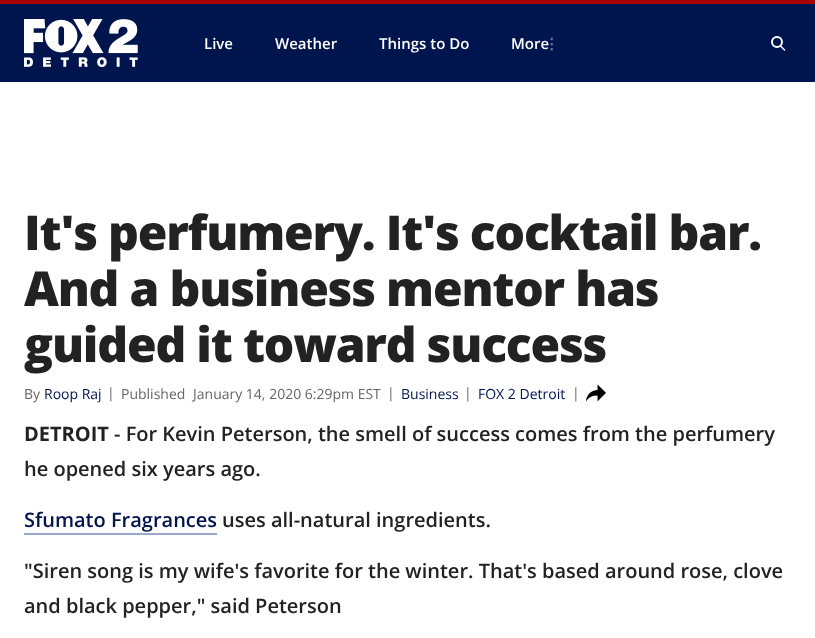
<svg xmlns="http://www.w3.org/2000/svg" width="815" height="638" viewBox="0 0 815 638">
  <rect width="100%" height="100%" fill="#fff"/>
  <path d="M0 4h815v78H0z" fill="#00144e"/>
  <path d="M0 0h815v4H0z" fill="#a70000"/>
  <image x="24" y="19" width="114" height="48" href="img/1.png"/>
  <circle cx="777" cy="42" r="5" fill="none" stroke="#fff" stroke-width="2"/>
  <path d="M780.5 45L785.5 50L784.5 51L779.5 46Z" fill="#fff"/>
  <image x="586" y="384" width="20" height="18" href="img/2.png"/>
  <path d="M24 533h193v2H24z" fill="#99a7cc"/>
  <g font-family="Open Sans" font-size="15" font-weight="600" fill="#fff">
    <text x="204" y="49">Live</text>
    <text x="275" y="49">Weather</text>
    <text x="379" y="49">Things to Do</text>
    <text x="511" y="49">More</text>
  </g>
  <text x="544" y="49" font-family="DejaVu Sans" font-size="15" font-weight="bold" fill="#667bb3">⋮</text>
  <g font-family="Open Sans" font-size="48" font-weight="800" letter-spacing="-1.2" fill="#222">
    <text x="24" y="250">It's perfumery. It's cocktail bar.</text>
    <text x="24" y="306">And a business mentor has</text>
    <text x="24" y="362">guided it toward success</text>
  </g>
  <text x="24" y="399" font-family="Open Sans" font-size="14" fill="#666">By</text>
  <text x="44" y="399" font-family="Open Sans" font-size="14" fill="#00144e">Roop Raj</text>
  <g font-family="Open Sans" font-size="14" fill="#666">
    <text x="107" y="398">|</text>
    <text x="121" y="399">Published</text>
    <text x="193" y="399">January 14, 2020 6:29pm EST</text>
    <text x="387" y="398">|</text>
  </g>
  <text x="401" y="399" font-family="Open Sans" font-size="14" fill="#00144e">Business</text>
  <text x="464" y="398" font-family="Open Sans" font-size="14" fill="#666">|</text>
  <text x="478" y="399" font-family="Open Sans" font-size="14" fill="#00144e">FOX 2 Detroit</text>
  <text x="572" y="398" font-family="Open Sans" font-size="14" fill="#666">|</text>
  <text x="24" y="441" font-family="Open Sans" font-size="20" font-weight="bold" fill="#222">DETROIT</text>
  <g font-family="Open Sans" font-size="20" font-weight="600" fill="#222">
    <text x="114" y="441">- For Kevin Peterson, the smell of success comes from the perfumery</text>
    <text x="24" y="476">he opened six years ago.</text>
  </g>
  <text x="24" y="527" font-family="Open Sans" font-size="20" font-weight="600" fill="#00144e">Sfumato Fragrances</text>
  <g font-family="Open Sans" font-size="20" font-weight="600" fill="#222">
    <text x="222" y="527">uses all-natural ingredients.</text>
    <text x="24" y="578">"Siren song is my wife's favorite for the winter. That's based around rose, clove</text>
    <text x="24" y="613">and black pepper," said Peterson</text>
  </g>
</svg>
